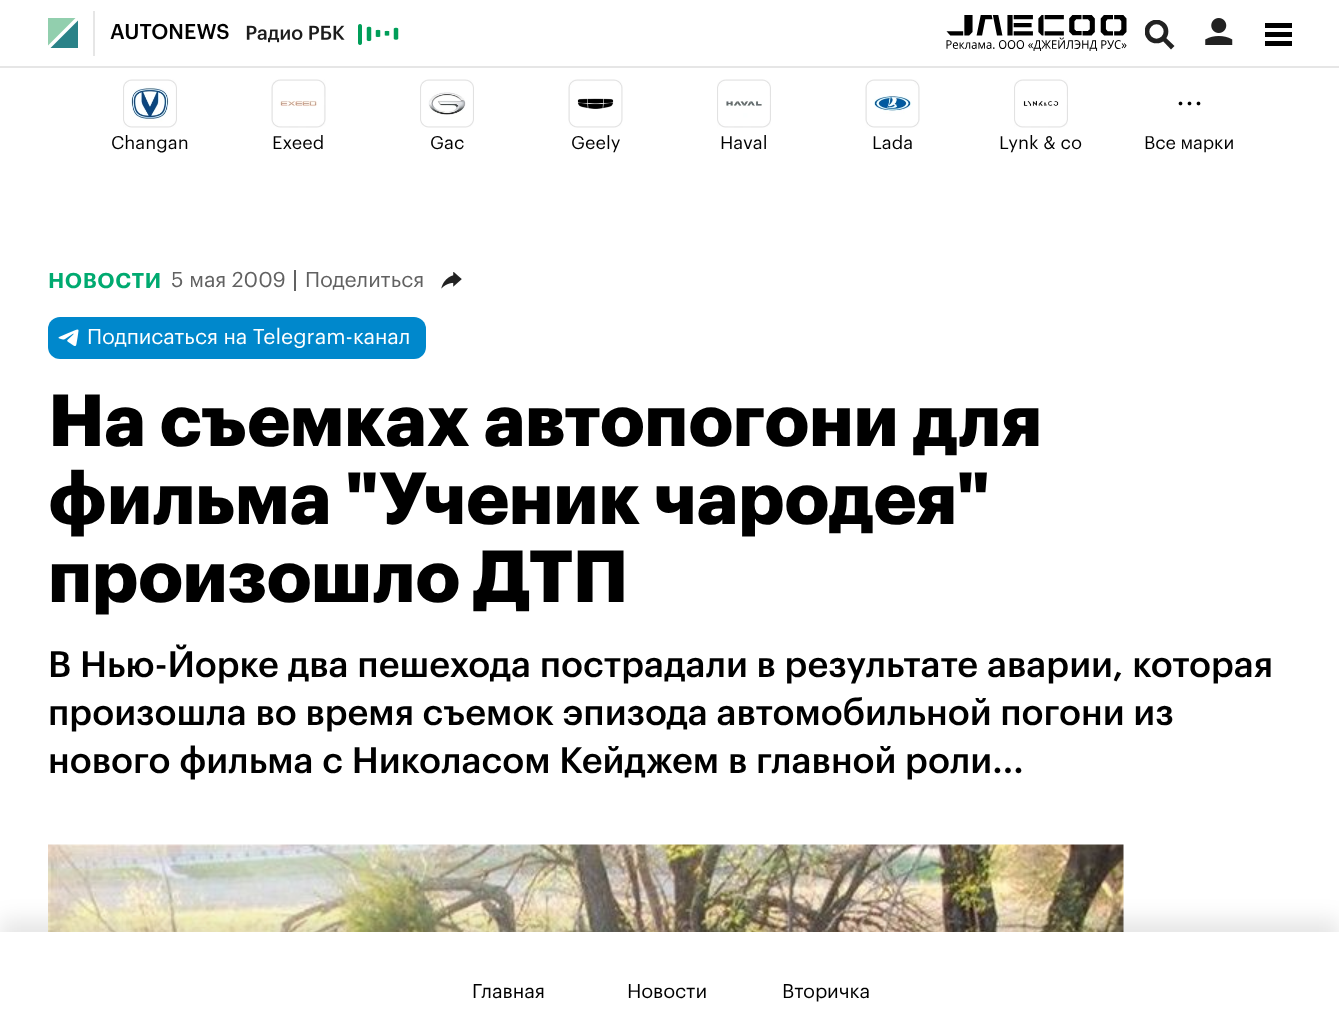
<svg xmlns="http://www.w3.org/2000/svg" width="1339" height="1021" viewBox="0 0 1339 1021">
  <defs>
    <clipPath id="clip1"><path d="M1145 20h30v30H1145z"/></clipPath>
  </defs>
  <rect width="100%" height="100%" fill="#fff"/>
  <path d="M0 66h1339v2H0z" fill="#e6e6e6"/>
  <path d="M48 18V45.5L75.5 18Z" fill="#92cfae" fill-rule="evenodd"/>
  <path d="M50.5 48H78V20.5Z" fill="#2a8288" fill-rule="evenodd"/>
  <path d="M93 11h2v45H93z" fill="#e6e6e6"/>
  <image x="246" y="24" width="153" height="21" href="img/1.png"/>
  <image x="946" y="15" width="181" height="36" href="img/2.png"/>
  <path d="M1174.5 46L1171 49.5L1159.5 37.5L1162.5 34.5Z" fill="#222" fill-rule="evenodd"/>
  <circle cx="1156.5" cy="31.5" r="9.5" fill="#fff"/>
  <g clip-path="url(#clip1)">
    <circle cx="1156.5" cy="31.5" r="9.5" fill="none" stroke="#222" stroke-width="4.7"/>
  </g>
  <image x="1205" y="18" width="28" height="27" href="img/3.png"/>
  <path d="M1265 23h27v5H1265z" fill="#000"/>
  <path d="M1265 32h27v5H1265z" fill="#000"/>
  <path d="M1265 41h27v5H1265z" fill="#000"/>
  <image x="123" y="79" width="54" height="49" href="img/4.png"/>
  <image x="271" y="79" width="55" height="49" href="img/5.png"/>
  <image x="420" y="79" width="54" height="49" href="img/6.png"/>
  <image x="568" y="79" width="55" height="49" href="img/7.png"/>
  <image x="717" y="79" width="54" height="49" href="img/8.png"/>
  <image x="865" y="79" width="55" height="49" href="img/9.png"/>
  <image x="1014" y="79" width="54" height="49" href="img/10.png"/>
  <image x="1178" y="101" width="23" height="5" href="img/11.png"/>
  <path d="M294 270h2v21H294z" fill="#616161"/>
  <image x="441" y="272" width="21" height="17" href="img/12.png"/>
  <rect x="48" y="317" width="378" height="42" rx="12" fill="#08c"/>
  <image x="58" y="329" width="21" height="17" href="img/13.png"/>
  <image x="48" y="844" width="1076" height="88" href="img/14.png"/>
  <path d="M0 920h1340v90H0z" fill="#0000001a" filter="blur(11px)"/>
  <path d="M0 932h1339v89H0z" fill="#fff"/>
  <text x="110" y="39" font-family="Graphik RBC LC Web" font-size="21" font-weight="500" fill="#000">AUTONEWS</text>
  <g font-family="Graphik RBC LC Web" font-size="18" fill="#000">
    <text x="111" y="149">Changan</text>
    <text x="272" y="149">Exeed</text>
    <text x="430" y="149">Gac</text>
    <text x="571" y="149">Geely</text>
    <text x="720" y="149">Haval</text>
    <text x="872" y="149">Lada</text>
    <text x="999" y="149">Lynk &amp; co</text>
    <text x="1144" y="149">Все марки</text>
  </g>
  <text x="48" y="288" font-family="Graphik RBC LC Web" font-size="21" font-weight="600" letter-spacing="0.75" fill="#00aa70">НОВОСТИ</text>
  <g font-family="Graphik RBC LC Web" font-size="21" fill="#616161">
    <text x="171" y="287">5 мая 2009</text>
    <text x="305" y="287">Поделиться</text>
  </g>
  <text x="87" y="344" font-family="Graphik RBC LC Web" font-size="21" fill="#fff">Подписаться на Telegram-канал</text>
  <g font-family="Graphik RBC LC Web" font-size="72" font-weight="bold" letter-spacing="-0.15" fill="#000">
    <text x="48" y="446">На съемках автопогони для</text>
    <text x="48" y="524">фильма "Ученик чародея"</text>
    <text x="48" y="602">произошло ДТП</text>
  </g>
  <g font-family="Graphik RBC LC Web" font-size="36" font-weight="500" fill="#000">
    <text x="48" y="677">В Нью-Йорке два пешехода пострадали в результате аварии, которая</text>
    <text x="48" y="725">произошла во время съемок эпизода автомобильной погони из</text>
    <text x="48" y="773">нового фильма с Николасом Кейджем в главной роли...</text>
  </g>
  <g font-family="Graphik RBC LC Web" font-size="19.5" fill="#000">
    <text x="472" y="998">Главная</text>
    <text x="627" y="998">Новости</text>
    <text x="782" y="998">Вторичка</text>
  </g>
</svg>
